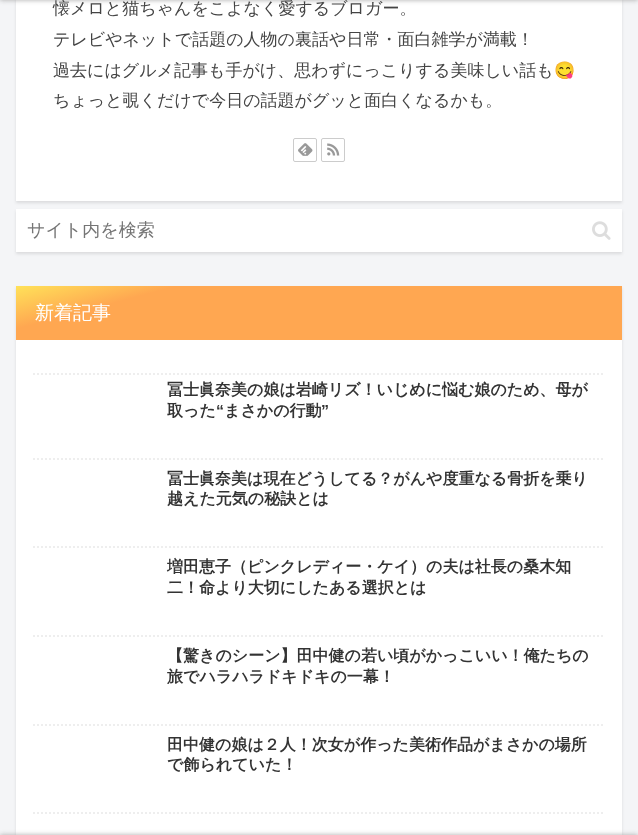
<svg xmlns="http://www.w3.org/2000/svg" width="638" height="835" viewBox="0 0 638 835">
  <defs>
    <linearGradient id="g1" gradientUnits="userSpaceOnUse" x1="292" y1="212" x2="346" y2="414"><stop offset="0" stop-color="#ffe259"/><stop offset="0.2" stop-color="#ffa751"/></linearGradient>
  </defs>
  <rect width="100%" height="100%" fill="#f4f5f7"/>
  <path d="M16 -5h606v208H16z" fill="#0000001a" filter="blur(1.5px)"/>
  <path d="M16 0h606v201H16z" fill="#fff"/>
  <path d="M0 -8h638v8H0z" fill="#a9a9a9" filter="blur(2.5px)"/>
  <rect x="293.5" y="138.5" width="23" height="23" rx="1.5" fill="none" stroke="#ccc"/>
  <image x="298" y="143" width="15" height="13" href="img/1.png"/>
  <rect x="321.5" y="138.5" width="23" height="23" rx="1.5" fill="none" stroke="#ccc"/>
  <image x="327" y="143" width="13" height="13" href="img/2.png"/>
  <path d="M16 211h606v43H16z" fill="#0000001a" filter="blur(1.5px)"/>
  <path d="M16 209h606v43H16z" fill="#fff"/>
  <image x="592" y="221" width="19" height="19" href="img/3.png"/>
  <path d="M16 288h606v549H16z" fill="#0000001a" filter="blur(1.5px)"/>
  <path d="M16 340h606v495H16z" fill="#fff"/>
  <path d="M16 286h606v54H16z" fill="url(#g1)"/>
  <path d="M33 374H605" fill="none" stroke="#eee" stroke-width="2" stroke-dasharray="2 2"/>
  <path d="M33 459H605" fill="none" stroke="#eee" stroke-width="2" stroke-dasharray="2 2"/>
  <path d="M33 547H605" fill="none" stroke="#eee" stroke-width="2" stroke-dasharray="2 2"/>
  <path d="M33 636H605" fill="none" stroke="#eee" stroke-width="2" stroke-dasharray="2 2"/>
  <path d="M33 725H605" fill="none" stroke="#eee" stroke-width="2" stroke-dasharray="2 2"/>
  <path d="M33 813H605" fill="none" stroke="#eee" stroke-width="2" stroke-dasharray="2 2"/>
  <path d="M0 835h638v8H0z" fill="#a9a9a9" filter="blur(2.5px)"/>
  <g font-family="WenQuanYi Zen Hei" font-size="17" font-weight="500" fill="#444">
    <text x="53" y="14">懐メロと猫ちゃんをこよなく愛するブロガー。</text>
    <text x="53" y="45">テレビやネットで話題の人物の裏話や日常・面白雑学が満載！</text>
    <text x="53" y="76">過去にはグルメ記事も手がけ、思わずにっこりする美味しい話も</text>
  </g>
  <text x="554" y="76" font-family="Noto Color Emoji" font-size="17" fill="#444">😋</text>
  <text x="53" y="106" font-family="WenQuanYi Zen Hei" font-size="17" font-weight="500" fill="#444">ちょっと覗くだけで今日の話題がグッと面白くなるかも。</text>
  <text x="27" y="236" font-family="WenQuanYi Zen Hei" font-size="18" font-weight="500" fill="#757575">サイト内を検索</text>
  <text x="35" y="319" font-family="WenQuanYi Zen Hei" font-size="19" font-weight="500" fill="#fff">新着記事</text>
  <g font-family="WenQuanYi Zen Hei" font-size="16" font-weight="bold" fill="#333">
    <text x="167" y="395">冨士眞奈美の娘は岩崎リズ！いじめに悩む娘のため、母が</text>
    <text x="167" y="416">取った</text>
  </g>
  <text x="216" y="416" font-family="Liberation Sans" font-size="16" font-weight="bold" fill="#333">“</text>
  <text x="224" y="416" font-family="WenQuanYi Zen Hei" font-size="16" font-weight="bold" fill="#333">まさかの行動</text>
  <text x="321" y="416" font-family="Liberation Sans" font-size="16" font-weight="bold" fill="#333">”</text>
  <g font-family="WenQuanYi Zen Hei" font-size="16" font-weight="bold" fill="#333">
    <text x="167" y="484">冨士眞奈美は現在どうしてる？がんや度重なる骨折を乗り</text>
    <text x="167" y="504">越えた元気の秘訣とは</text>
    <text x="167" y="572">増田恵子（ピンクレディー・ケイ）の夫は社長の桑木知</text>
    <text x="167" y="593">二！命より大切にしたある選択とは</text>
    <text x="167" y="661">【驚きのシーン】田中健の若い頃がかっこいい！俺たちの</text>
    <text x="167" y="682">旅でハラハラドキドキの一幕！</text>
    <text x="167" y="750">田中健の娘は２人！次女が作った美術作品がまさかの場所</text>
    <text x="167" y="770">で飾られていた！</text>
  </g>
</svg>
